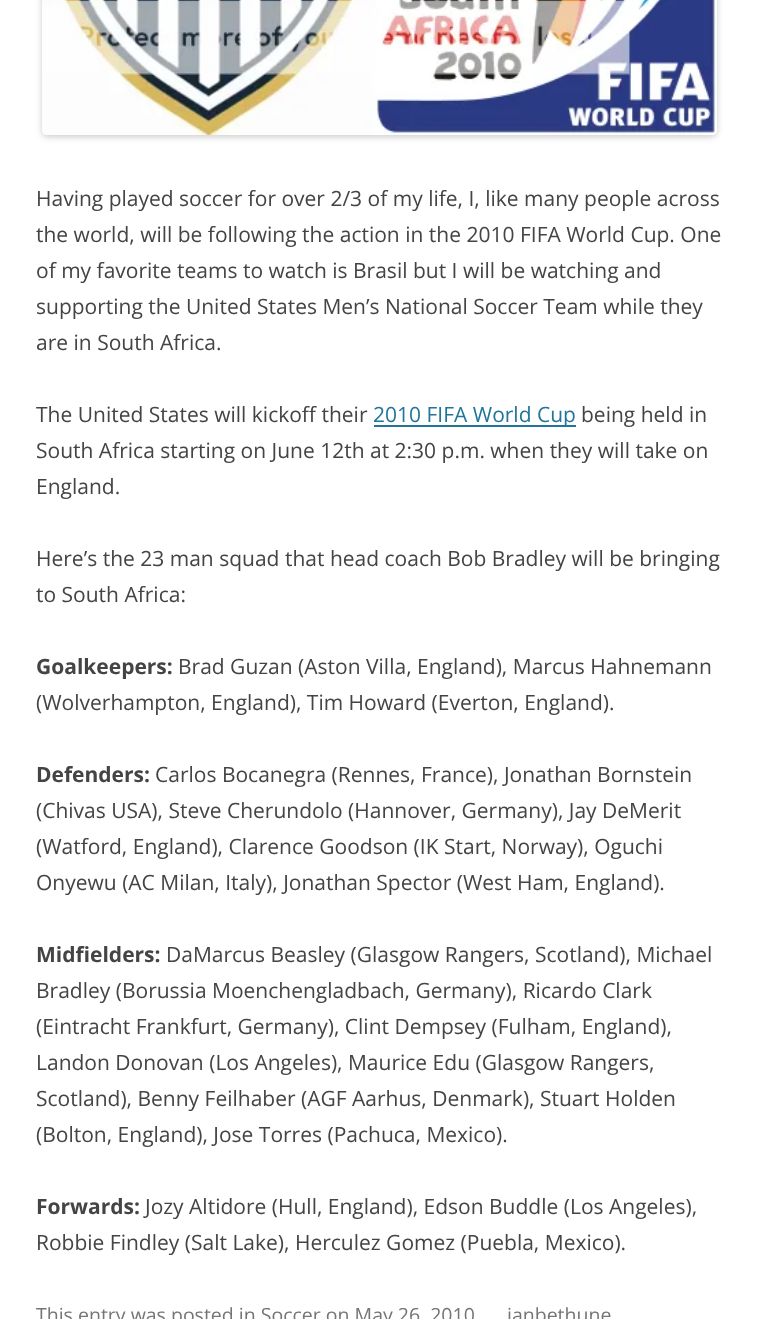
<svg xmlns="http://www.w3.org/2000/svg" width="757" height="1319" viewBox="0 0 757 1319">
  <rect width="100%" height="100%" fill="#fff"/>
  <rect x="42" y="-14" width="675" height="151" rx="5" fill="#00000033" filter="blur(3px)"/>
  <image x="42" y="0" width="675" height="135" href="img/1.png"/>
  <path d="M374 425h202v2H374z" fill="#21759b"/>
  <g font-family="Open Sans" font-size="21" fill="#444">
    <text x="36" y="206">Having played soccer for over 2/3 of my life, I, like many people across</text>
    <text x="36" y="242">the world, will be following the action in the 2010 FIFA World Cup. One</text>
    <text x="36" y="278">of my favorite teams to watch is Brasil but I will be watching and</text>
    <text x="36" y="314">supporting the United States Men’s National Soccer Team while they</text>
    <text x="36" y="350">are in South Africa.</text>
    <text x="36" y="422">The United States will kickoff their</text>
  </g>
  <text x="373" y="422" font-family="Open Sans" font-size="21" fill="#21759b">2010 FIFA World Cup</text>
  <g font-family="Open Sans" font-size="21" fill="#444">
    <text x="581" y="422">being held in</text>
    <text x="36" y="458">South Africa starting on June 12th at 2:30 p.m. when they will take on</text>
    <text x="36" y="494">England.</text>
    <text x="36" y="566">Here’s the 23 man squad that head coach Bob Bradley will be bringing</text>
    <text x="36" y="602">to South Africa:</text>
  </g>
  <text x="36" y="674" font-family="Open Sans" font-size="21" font-weight="bold" fill="#444">Goalkeepers:</text>
  <g font-family="Open Sans" font-size="21" fill="#444">
    <text x="178" y="674">Brad Guzan (Aston Villa, England), Marcus Hahnemann</text>
    <text x="36" y="710">(Wolverhampton, England), Tim Howard (Everton, England).</text>
  </g>
  <text x="36" y="782" font-family="Open Sans" font-size="21" font-weight="bold" fill="#444">Defenders:</text>
  <g font-family="Open Sans" font-size="21" fill="#444">
    <text x="155" y="782">Carlos Bocanegra (Rennes, France), Jonathan Bornstein</text>
    <text x="36" y="818">(Chivas USA), Steve Cherundolo (Hannover, Germany), Jay DeMerit</text>
    <text x="36" y="854">(Watford, England), Clarence Goodson (IK Start, Norway), Oguchi</text>
    <text x="36" y="890">Onyewu (AC Milan, Italy), Jonathan Spector (West Ham, England).</text>
  </g>
  <text x="36" y="962" font-family="Open Sans" font-size="21" font-weight="bold" fill="#444">Midfielders:</text>
  <g font-family="Open Sans" font-size="21" fill="#444">
    <text x="166" y="962">DaMarcus Beasley (Glasgow Rangers, Scotland), Michael</text>
    <text x="36" y="998">Bradley (Borussia Moenchengladbach, Germany), Ricardo Clark</text>
    <text x="36" y="1034">(Eintracht Frankfurt, Germany), Clint Dempsey (Fulham, England),</text>
    <text x="36" y="1070">Landon Donovan (Los Angeles), Maurice Edu (Glasgow Rangers,</text>
    <text x="36" y="1106">Scotland), Benny Feilhaber (AGF Aarhus, Denmark), Stuart Holden</text>
    <text x="36" y="1142">(Bolton, England), Jose Torres (Pachuca, Mexico).</text>
  </g>
  <text x="36" y="1214" font-family="Open Sans" font-size="21" font-weight="bold" fill="#444">Forwards:</text>
  <g font-family="Open Sans" font-size="21" fill="#444">
    <text x="145" y="1214">Jozy Altidore (Hull, England), Edson Buddle (Los Angeles),</text>
    <text x="36" y="1250">Robbie Findley (Salt Lake), Herculez Gomez (Puebla, Mexico).</text>
  </g>
  <g font-family="Open Sans" font-size="19.5" fill="#757575">
    <text x="36" y="1322">This entry was posted in Soccer on May 26, 2010</text>
    <text x="507" y="1322">ianbethune</text>
  </g>
</svg>
